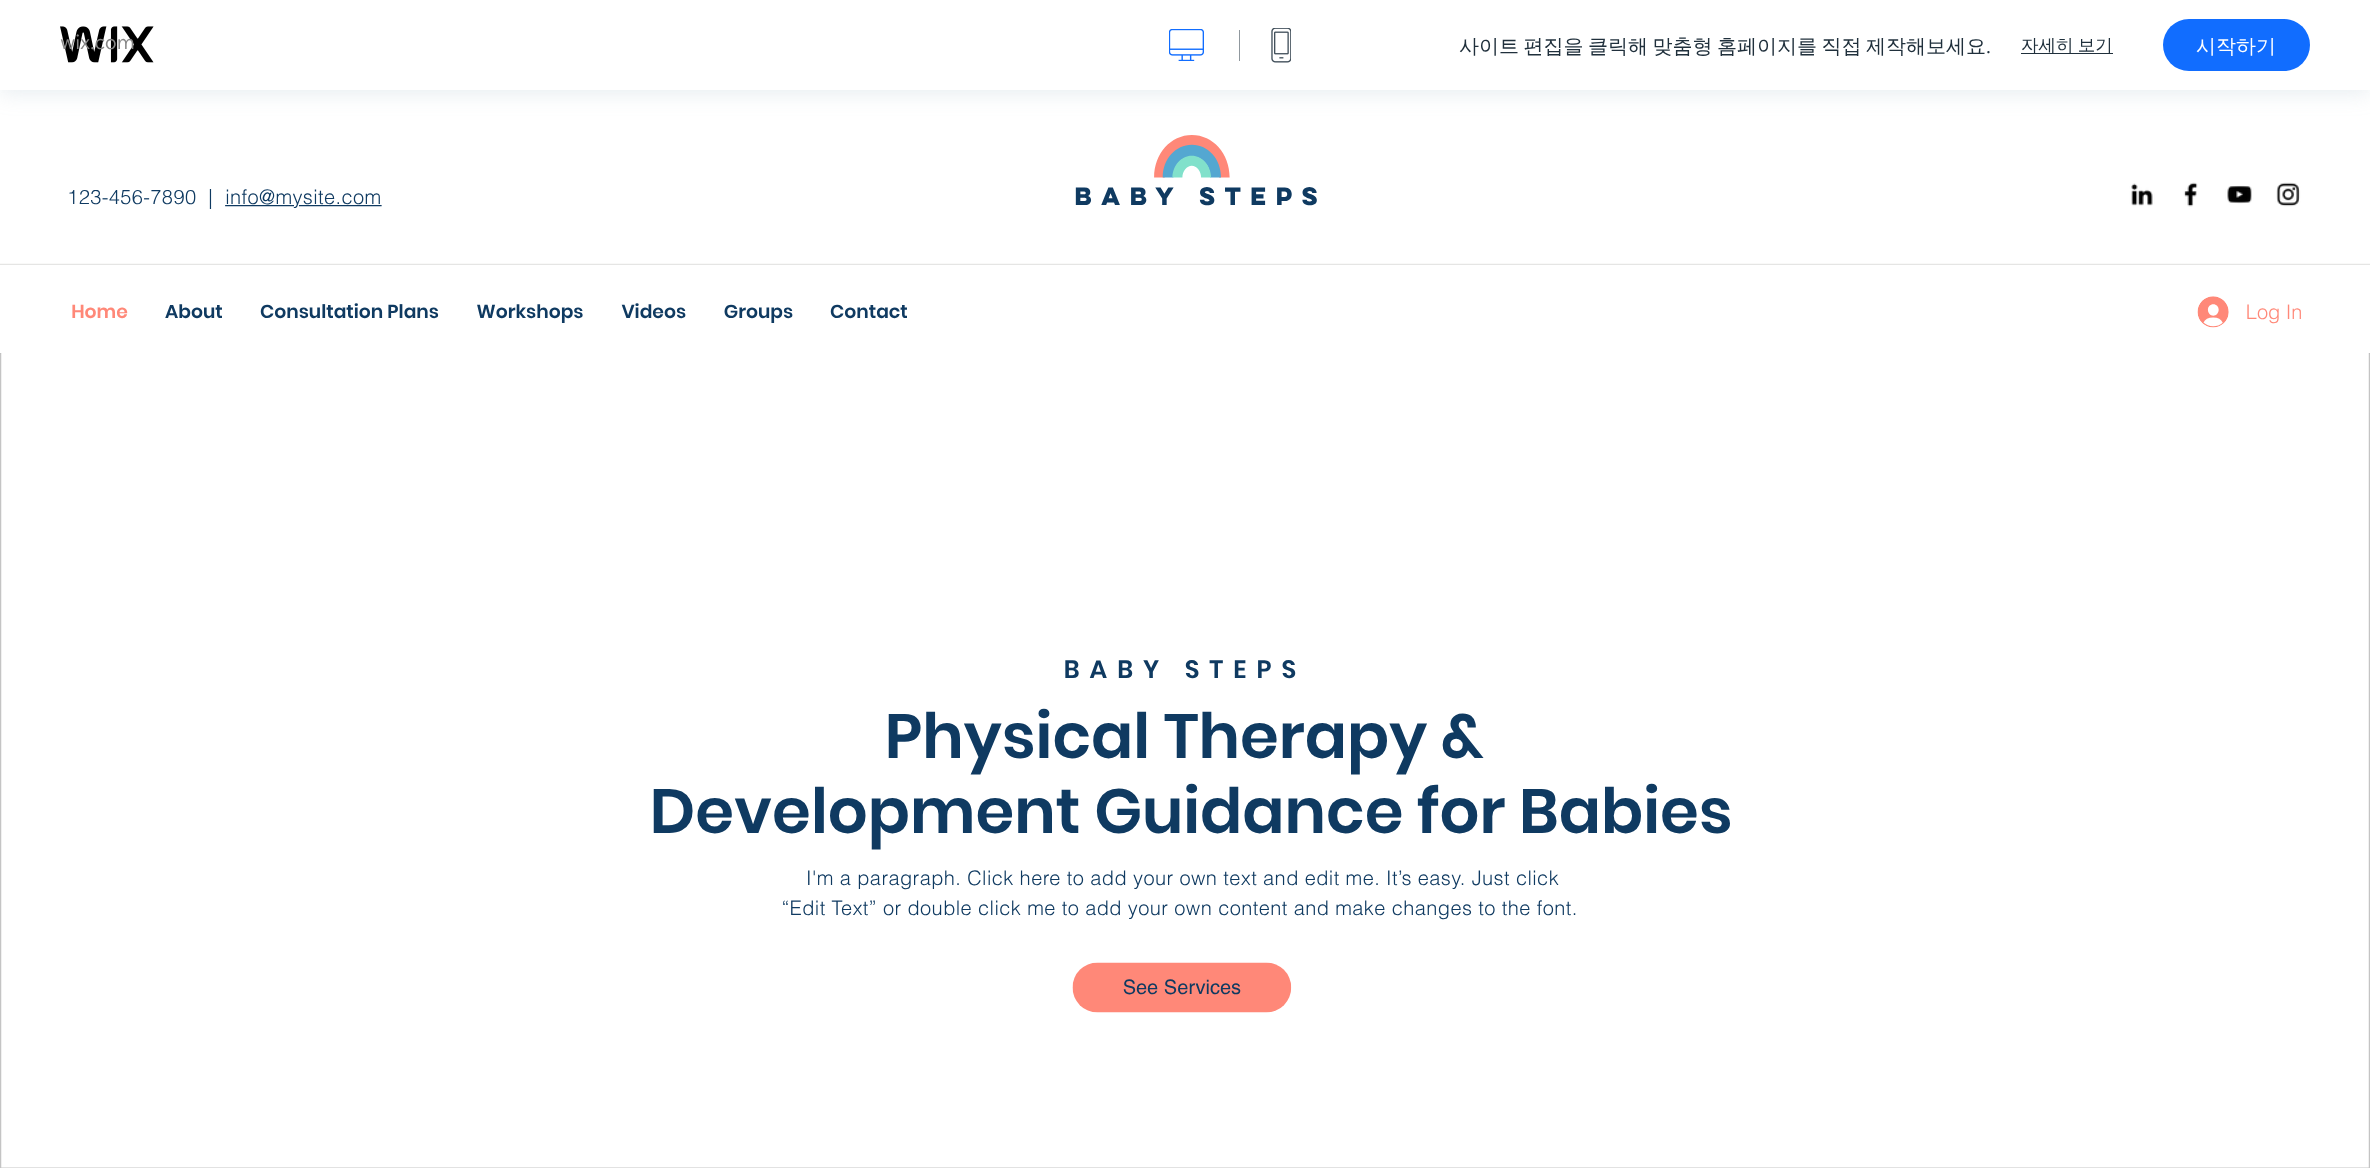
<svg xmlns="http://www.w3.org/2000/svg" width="2370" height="1168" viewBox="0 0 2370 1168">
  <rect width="100%" height="100%" fill="#fff"/>
  <image x="0" y="90" width="2370" height="1078" href="img/4.png"/>
  <path d="M0 3h2370v90H0z" fill="#81a2b633" filter="blur(11px)"/>
  <path d="M0 0h2370v90H0z" fill="#fff"/>
  <image x="60" y="26" width="94" height="37" href="img/1.png"/>
  <image x="1169" y="29" width="35" height="32" href="img/2.png"/>
  <path d="M1239 30h1v31H1239z" fill="#90989e"/>
  <image x="1271" y="28" width="20" height="35" href="img/3.png"/>
  <path d="M2021 53h92v1H2021z" fill="#20303c"/>
  <rect x="2163" y="19" width="147" height="52" rx="26" fill="#116dff"/>
  <text x="60" y="49" font-family="Wix Madefor Text" font-size="20" fill="#878787">wix.com</text>
  <text x="1459" y="53" word-spacing="-1.5" font-family="WenQuanYi Zen Hei" font-size="20" font-weight="500" fill="#20303c">사이트 편집을 클릭해 맞춤형 홈페이지를 직접 제작해보세요</text>
  <text x="1986" y="53" font-family="Wix Madefor Text" font-size="20" fill="#20303c">.</text>
  <text x="2021" y="51" word-spacing="-1" font-family="WenQuanYi Zen Hei" font-size="17.5" font-weight="500" fill="#20303c">자세히 보기</text>
  <text x="2196" y="53" font-family="WenQuanYi Zen Hei" font-size="20" font-weight="500" fill="#fff">시작하기</text>
</svg>
